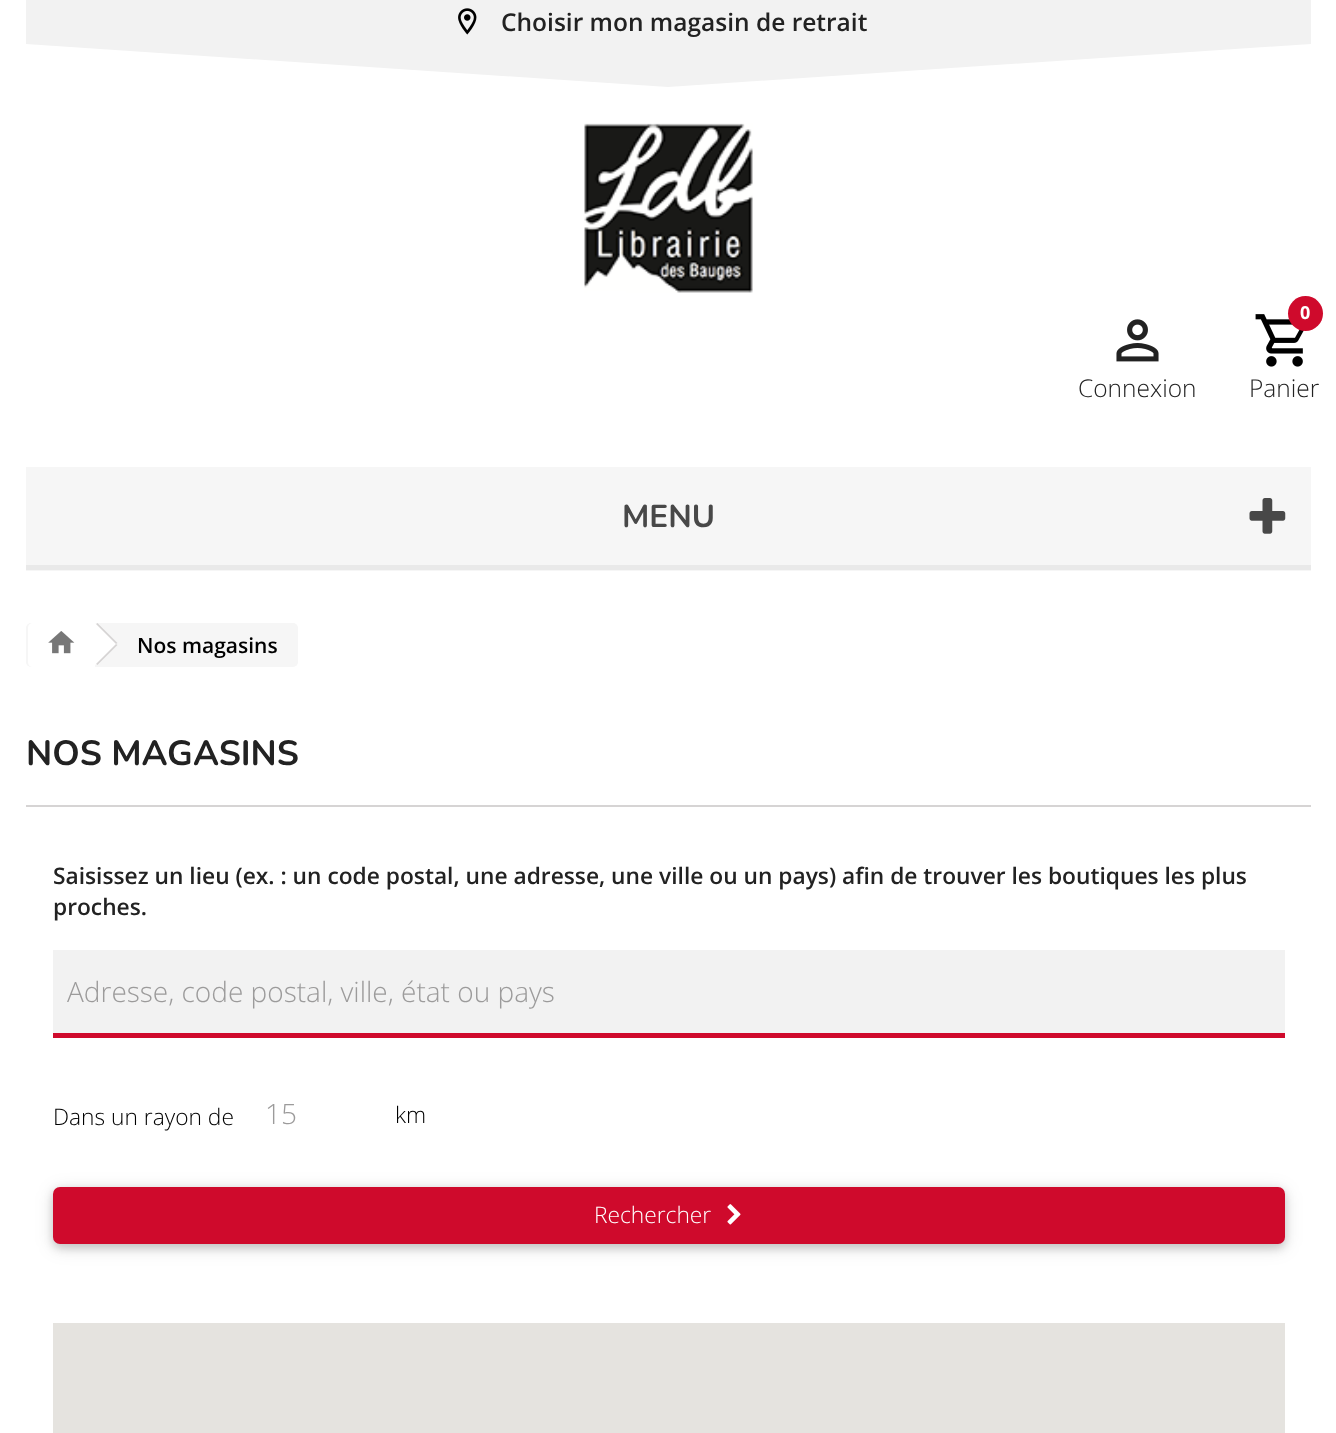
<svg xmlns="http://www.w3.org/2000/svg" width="1336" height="1433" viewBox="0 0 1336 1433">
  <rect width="100%" height="100%" fill="#fff"/>
  <path d="M26 0h1285v44H26z" fill="#f2f2f2"/>
  <image x="458" y="8" width="19" height="27" href="img/1.png"/>
  <path d="M26 44L668 87L1311 44Z" fill="#f2f2f2"/>
  <image x="584" y="123" width="169" height="170" href="img/2.png"/>
  <image x="1116" y="319" width="43" height="43" href="img/3.png"/>
  <image x="1255" y="314" width="49" height="53" href="img/4.png"/>
  <circle cx="1305.5" cy="313.5" r="17.5" fill="#cf0a2c"/>
  <path d="M26 467h1285v104H26z" fill="#f6f6f6"/>
  <path d="M26 565h1285v5H26z" fill="#e9e9e9"/>
  <image x="1249" y="498" width="37" height="36" href="img/5.png"/>
  <rect x="26" y="623" width="272" height="44" rx="5" fill="#f6f6f6"/>
  <path d="M33 623H95V667H33C30 667 28 665 28 662V628C28 625 30 623 33 623Z" fill="#fff"/>
  <image x="48" y="631" width="27" height="23" href="img/6.png"/>
  <path d="M99 624L116 642C117 643 117 645 116 646L99 664C97 665 95 665 94 664L76 646C75 645 75 643 76 642L94 624C95 623 97 623 99 624Z" fill="#fff"/>
  <path d="M97.5 623L117.5 643L116 644L96 624ZM116 644L117.5 645L97.5 665L96 664Z" fill="#d6d4d4"/>
  <path d="M26 805h1285v2H26z" fill="#d6d4d4"/>
  <path d="M53 950h1232v83H53z" fill="#f2f2f2"/>
  <path d="M53 1033h1232v5H53z" fill="#cf0a2c"/>
  <rect x="53" y="1190" width="1232" height="58" rx="7" fill="#0000001f" filter="blur(9px)"/>
  <rect x="53" y="1190" width="1232" height="58" rx="7" fill="#00000029" filter="blur(4.5px)"/>
  <rect x="53" y="1187" width="1232" height="57" rx="7" fill="#cf0a2c"/>
  <image x="727" y="1204" width="14" height="21" href="img/7.png"/>
  <path d="M53 1323h1232v110H53z" fill="#e5e3df"/>
  <text x="501" y="31" font-family="Open Sans" font-size="24.5" font-weight="600" fill="#222">Choisir mon magasin de retrait</text>
  <text x="1078" y="397" font-family="Open Sans" font-size="24.5" font-weight="300" fill="#222">Connexion</text>
  <text x="1300" y="319" font-family="Open Sans" font-size="18" font-weight="bold" fill="#fff">0</text>
  <text x="1249" y="397" font-family="Open Sans" font-size="24.5" font-weight="300" fill="#222">Panier</text>
  <text x="622" y="527" font-family="Nunito" font-size="31.5" font-weight="bold" fill="#484848">MENU</text>
  <text x="137" y="653" font-family="Open Sans" font-size="21" font-weight="600" fill="#000">Nos magasins</text>
  <text x="26" y="765" font-family="Nunito" font-size="35" font-weight="bold" fill="#222">NOS MAGASINS</text>
  <g font-family="Open Sans" font-size="22.75" font-weight="600" fill="#222">
    <text x="53" y="884">Saisissez un lieu (ex. : un code postal, une adresse, une ville ou un pays) afin de trouver les boutiques les plus</text>
    <text x="53" y="915">proches.</text>
  </g>
  <text x="67" y="1002" font-family="Open Sans" font-size="28" font-weight="300" fill="#9c9b9b">Adresse, code postal, ville, état ou pays</text>
  <text x="53" y="1125" font-family="Open Sans" font-size="22.75" font-weight="300" fill="#000">Dans un rayon de</text>
  <text x="265" y="1124" font-family="Open Sans" font-size="28" font-weight="300" fill="#9c9b9b">15</text>
  <text x="395" y="1123" font-family="Open Sans" font-size="22.75" font-weight="300" fill="#000">km</text>
  <text x="594" y="1223" font-family="Open Sans" font-size="22.75" font-weight="300" fill="#fff">Rechercher</text>
</svg>
